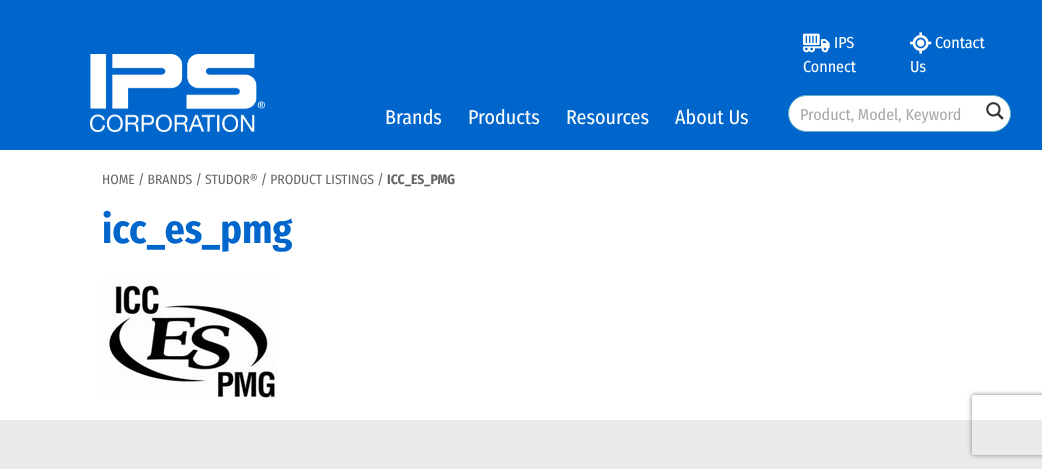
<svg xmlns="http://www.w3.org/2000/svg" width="1042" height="469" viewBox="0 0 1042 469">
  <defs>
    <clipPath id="clip1"><path d="M980 96h30v30H980z"/></clipPath>
    <clipPath id="clip2"><path d="M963 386H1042V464H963ZM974 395H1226C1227 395 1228 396 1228 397V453C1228 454 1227 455 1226 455H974C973 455 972 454 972 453V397C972 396 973 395 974 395Z" clip-rule="evenodd"/></clipPath>
  </defs>
  <rect width="100%" height="100%" fill="#fff"/>
  <path d="M0 0h1042v150H0z" fill="#06c"/>
  <image x="90" y="54" width="175" height="78" href="img/1.png"/>
  <image x="803" y="33" width="27" height="20" href="img/2.png"/>
  <image x="910" y="32" width="22" height="22" href="img/3.png"/>
  <rect x="788.5" y="95.5" width="222" height="36" rx="18" fill="#fff" stroke="#68aec7"/>
  <g clip-path="url(#clip1)">
    <path d="M979 97V127H1004C1001 129 997 131 992 131H881V96H992L998 97ZM1009 119C1010 116 1010 111 1009 108Z" fill="#ffffff9c" fill-rule="evenodd"/>
  </g>
  <image x="986" y="102" width="18" height="18" href="img/4.png"/>
  <image x="103" y="279" width="175" height="119" href="img/5.png"/>
  <path d="M0 420h1042v49H0z" fill="#eaeaea"/>
  <g clip-path="url(#clip2)">
    <rect x="972" y="395" width="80" height="60" rx="2" fill="#808080" filter="blur(2.5px)"/>
  </g>
  <g font-family="Fira Sans Condensed" font-size="20" fill="#fff">
    <text x="385" y="124">Brands</text>
    <text x="468" y="124">Products</text>
    <text x="566" y="124">Resources</text>
    <text x="675" y="124">About Us</text>
  </g>
  <g font-family="Fira Sans Condensed" font-size="16" fill="#fff">
    <text x="834" y="48">IPS</text>
    <text x="803" y="72">Connect</text>
    <text x="935" y="48">Contact</text>
    <text x="910" y="72">Us</text>
  </g>
  <text x="800" y="120" font-family="Fira Sans Condensed" font-size="16" fill="#a8a8a8">Product, Model, Keyword</text>
  <text x="102" y="184" font-family="Fira Sans Condensed" font-size="13.6" fill="#666">HOME / BRANDS / STUDOR® / PRODUCT LISTINGS /</text>
  <text x="387" y="184" font-family="Fira Sans Condensed" font-size="13.6" font-weight="bold" fill="#666">ICC_ES_PMG</text>
  <text x="102" y="243" font-family="Fira Sans Condensed" font-size="40" font-weight="bold" fill="#06c">icc_es_pmg</text>
</svg>
